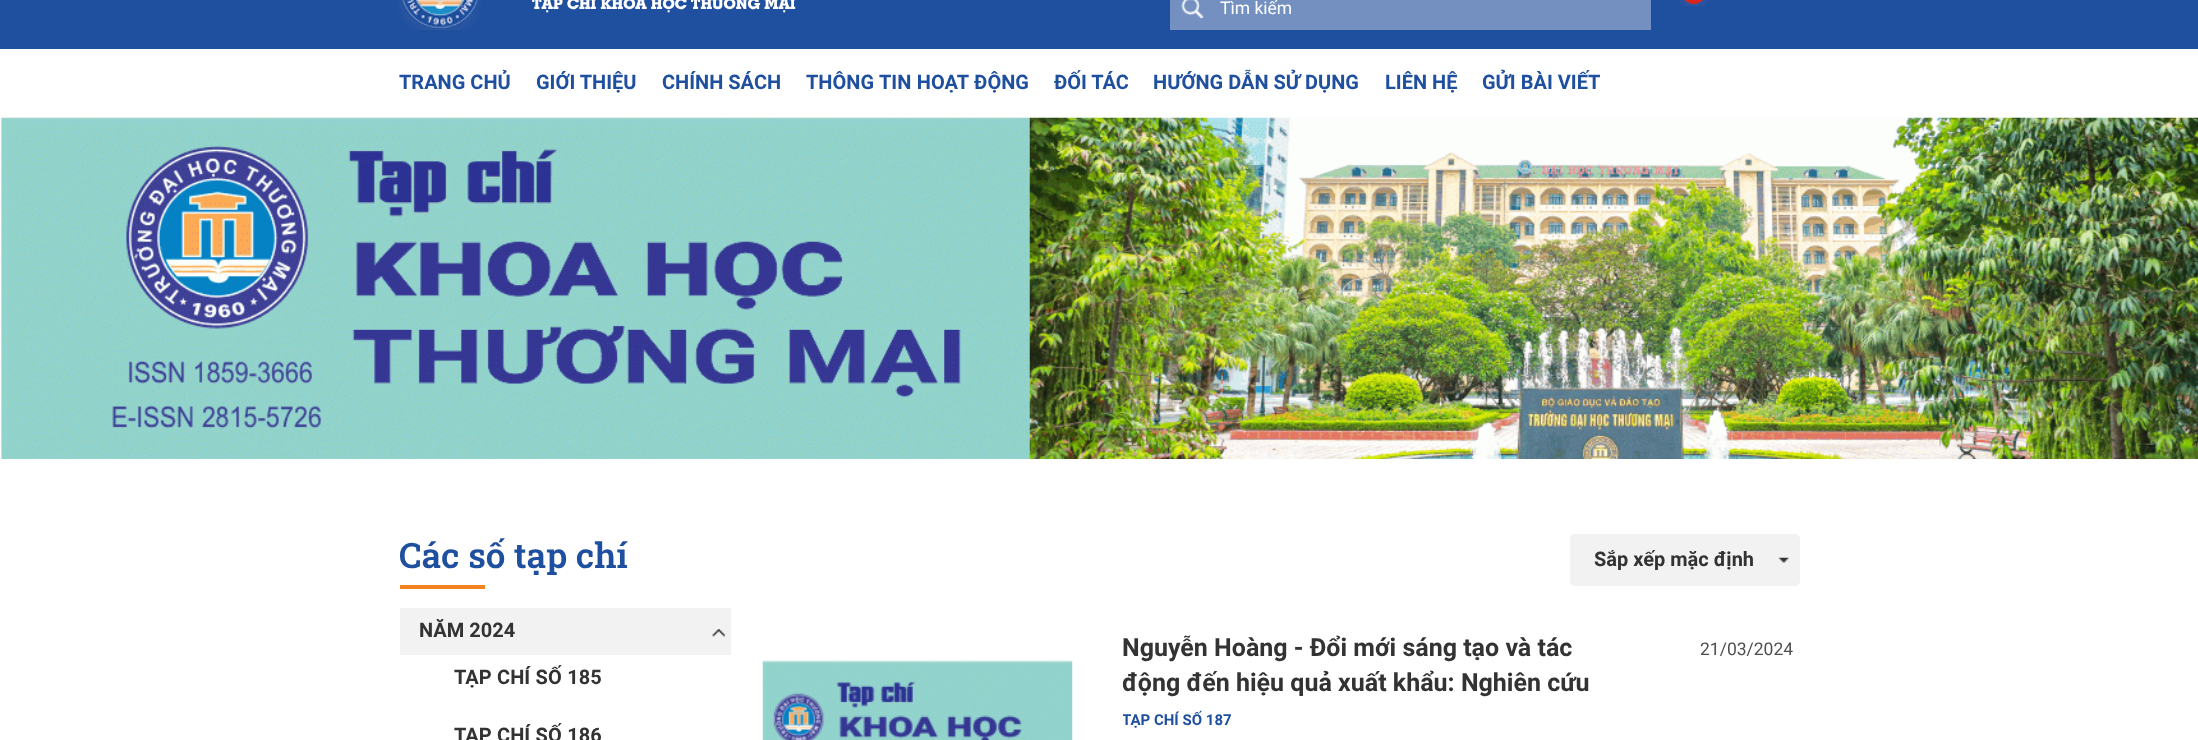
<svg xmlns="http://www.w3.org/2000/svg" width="2198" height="740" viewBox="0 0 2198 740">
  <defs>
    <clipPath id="clip1"><path d="M1123 630h483v70H1123z"/></clipPath>
    <clipPath id="clip2"><path d="M1123 706h671v28H1123z"/></clipPath>
  </defs>
  <rect width="100%" height="100%" fill="#fff"/>
  <path d="M0 0h2198v49H0z" fill="#1f4f9f"/>
  <image x="398" y="0" width="83" height="30" href="img/1.png"/>
  <path d="M1170 0h481v30H1170z" fill="#7390c0"/>
  <image x="1181" y="0" width="23" height="19" href="img/2.png"/>
  <image x="1680" y="0" width="28" height="6" href="img/3.png"/>
  <image x="1" y="116" width="2197" height="343" href="img/4.png"/>
  <path d="M400 585h85v4H400z" fill="#f48220"/>
  <path d="M400 608h331v47H400z" fill="#f2f2f2"/>
  <image x="712" y="629" width="13" height="8" href="img/5.png"/>
  <rect x="1570" y="534" width="230" height="52" rx="5" fill="#f2f2f2"/>
  <image x="1778" y="557" width="11" height="6" href="img/6.png"/>
  <image x="762" y="660" width="311" height="80" href="img/7.png"/>
  <text x="532" y="9" font-family="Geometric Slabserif" font-size="15" font-weight="800" fill="#fff">TẠP CHÍ KHOA HỌC THƯƠNG MẠI</text>
  <text x="1220" y="14" font-family="Roboto" font-size="17.5" fill="#fff">Tìm kiếm</text>
  <g font-family="Roboto" font-size="20" font-weight="bold" fill="#1f4f9f">
    <text x="399" y="89">TRANG CHỦ</text>
    <text x="536" y="89">GIỚI THIỆU</text>
    <text x="662" y="89">CHÍNH SÁCH</text>
    <text x="806" y="89" word-spacing="0.5">THÔNG TIN HOẠT ĐỘNG</text>
    <text x="1054" y="89">ĐỐI TÁC</text>
    <text x="1153" y="89">HƯỚNG DẪN SỬ DỤNG</text>
    <text x="1385" y="89">LIÊN HỆ</text>
    <text x="1482" y="89">GỬI BÀI VIẾT</text>
  </g>
  <text x="399" y="568" font-family="Roboto Slab" font-size="35" font-weight="600" fill="#1f4f9f">Các số tạp chí</text>
  <g font-family="Roboto" font-size="20" font-weight="bold" fill="#333">
    <text x="419" y="637">NĂM 2024</text>
    <text x="454" y="684" word-spacing="0.5">TẠP CHÍ SỐ 185</text>
    <text x="454" y="742" word-spacing="0.5">TẠP CHÍ SỐ 186</text>
    <text x="1594" y="566">Sắp xếp mặc định</text>
  </g>
  <text x="1122" y="656" font-family="Roboto" font-size="25" font-weight="bold" fill="#333">Nguyễn Hoàng - Đổi mới sáng tạo và tác</text>
  <g clip-path="url(#clip1)">
    <text x="1122" y="691" font-family="Roboto" font-size="25" font-weight="bold" fill="#333">động đến hiệu quả xuất khẩu: Nghiên cứu</text>
  </g>
  <text x="1700" y="655" font-family="Roboto" font-size="17.5" fill="#4f4f4f">21/03/2024</text>
  <g clip-path="url(#clip2)">
    <text x="1122" y="725" font-family="Roboto" font-size="15" font-weight="bold" fill="#1f4f9f">TẠP CHÍ SỐ 187</text>
  </g>
</svg>
